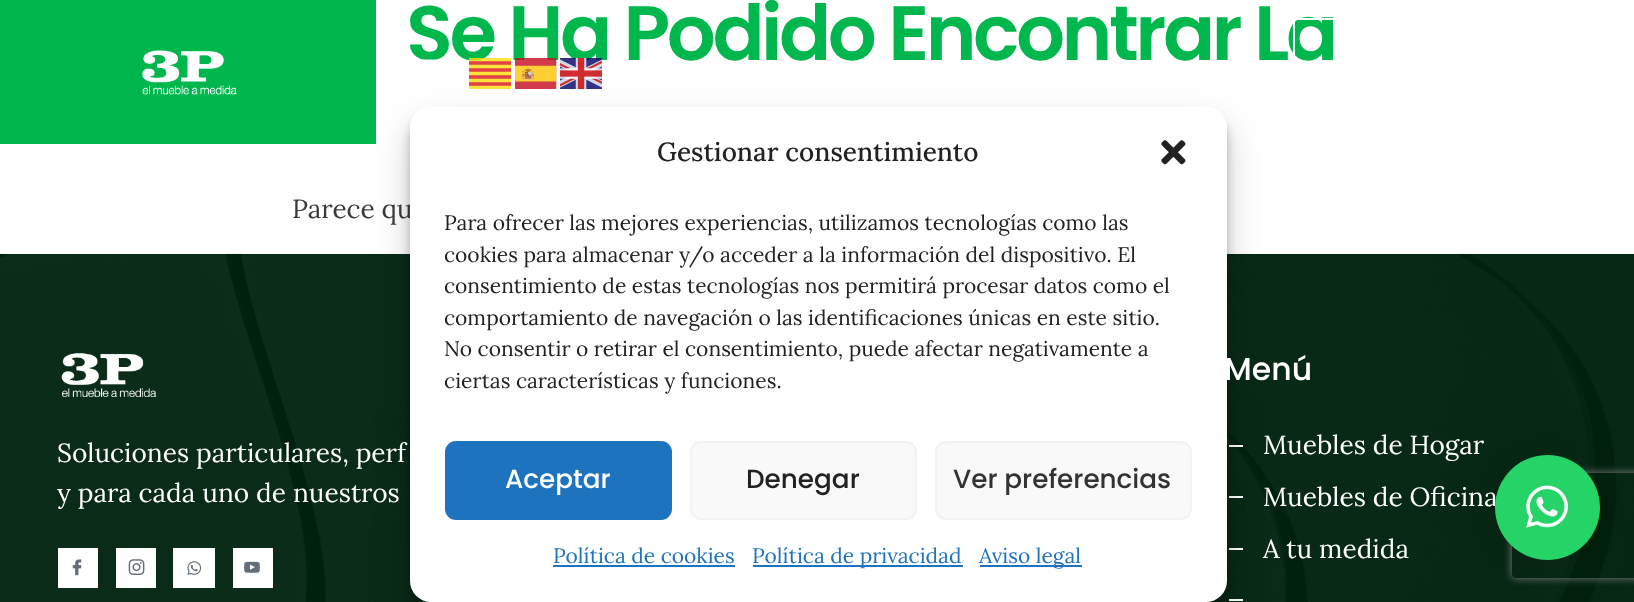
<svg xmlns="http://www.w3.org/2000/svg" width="1634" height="602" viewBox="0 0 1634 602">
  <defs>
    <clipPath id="clip1"><path d="M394 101H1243V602H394ZM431 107H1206C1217.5 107 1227 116.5 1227 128V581C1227 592.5 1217.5 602 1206 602H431C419.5 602 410 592.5 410 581V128C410 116.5 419.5 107 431 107Z" clip-rule="evenodd"/></clipPath>
    <clipPath id="clip2"><path d="M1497 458H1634V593H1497ZM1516 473H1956C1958 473 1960 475 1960 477V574C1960 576 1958 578 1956 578H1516C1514 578 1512 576 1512 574V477C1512 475 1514 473 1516 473Z" clip-rule="evenodd"/></clipPath>
    <clipPath id="clip3"><path d="M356 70H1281V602H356ZM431 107H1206C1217.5 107 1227 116.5 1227 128V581C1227 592.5 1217.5 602 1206 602H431C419.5 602 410 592.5 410 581V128C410 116.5 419.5 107 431 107Z" clip-rule="evenodd"/></clipPath>
    <clipPath id="clip4"><path d="M445 208h747v198H445z"/></clipPath>
  </defs>
  <rect width="100%" height="100%" fill="#fff"/>
  <path d="M0 0h376v144H0z" fill="#00b74e"/>
  <image x="142" y="50" width="95" height="45" href="img/1.png"/>
  <path d="M0 254h1634v348H0z" fill="#002510"/>
  <image x="0" y="253" width="1634" height="349" href="img/6.png"/>
  <path d="M1229 445h14v2H1229z" fill="#fff"/>
  <path d="M1229 496h14v2H1229z" fill="#fff"/>
  <path d="M1229 548h14v2H1229z" fill="#fff"/>
  <path d="M1229 599h14v2H1229z" fill="#fff"/>
  <g clip-path="url(#clip1)">
    <rect x="410" y="117" width="817" height="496" rx="21" fill="#0000003b" filter="blur(5px)"/>
  </g>
  <image x="61" y="353" width="96" height="44" href="img/7.png"/>
  <path d="M58 548h40v40H58z" fill="#fff"/>
  <image x="72" y="559" width="10" height="17" href="img/8.png"/>
  <path d="M116 548h40v40H116z" fill="#fff"/>
  <image x="128" y="559" width="17" height="16" href="img/9.png"/>
  <path d="M173 548h42v40H173z" fill="#fff"/>
  <image x="187" y="561" width="15" height="14" href="img/10.png"/>
  <path d="M233 548h40v40H233z" fill="#fff"/>
  <image x="244" y="561" width="16" height="12" href="img/11.png"/>
  <rect x="1495" y="459" width="105" height="105" rx="52.5" fill="#00000029" filter="blur(28px)"/>
  <g clip-path="url(#clip2)">
    <rect x="1512" y="473" width="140" height="105" rx="4" fill="#808080" filter="blur(4.5px)"/>
  </g>
  <text x="406" y="60" font-family="Poppins" font-size="77" font-weight="600" letter-spacing="-3.5" fill="#00b74e">Se Ha Podido Encontrar La</text>
  <path d="M1294 19h322v106H1294z" fill="none" stroke="#fff" stroke-width="2"/>
  <image x="560" y="58" width="42" height="31" href="img/4.png"/>
  <image x="515" y="58" width="42" height="31" href="img/3.png"/>
  <path d="M469 58h42v31H469z" fill="#fcdd09cc"/>
  <path d="M469 63H511M511 70H469M469 77H511M511 84H469" fill="none" stroke="#e14148" stroke-width="3.3"/>
  <image x="421" y="59" width="20" height="28" href="img/2.png"/>
  <text x="292" y="218" font-family="Lora" font-size="26.25" fill="#3c373d">Parece qu</text>
  <g clip-path="url(#clip3)">
    <rect x="410" y="124" width="817" height="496" rx="21" fill="#00000030" filter="blur(17.5px)"/>
  </g>
  <rect x="410" y="107" width="817" height="495" rx="21" fill="#fff"/>
  <text x="657" y="161" font-family="Lora" font-size="26.25" font-weight="500" fill="#222">Gestionar consentimiento</text>
  <image x="1161" y="140" width="25" height="25" href="img/5.png"/>
  <text x="444" y="230" font-family="Lora" font-size="21" fill="#222">Para ofrecer las mejores experiencias, utilizamos tecnologías como las</text>
  <g clip-path="url(#clip4)">
    <g font-family="Lora" font-size="21" fill="#222">
      <text x="444" y="262">cookies para almacenar y/o acceder a la información del dispositivo. El</text>
      <text x="444" y="293">consentimiento de estas tecnologías nos permitirá procesar datos como el</text>
      <text x="444" y="325">comportamiento de navegación o las identificaciones únicas en este sitio.</text>
    </g>
  </g>
  <text x="444" y="356" font-family="Lora" font-size="21" fill="#222">No consentir o retirar el consentimiento, puede afectar negativamente a</text>
  <g clip-path="url(#clip4)">
    <text x="444" y="388" font-family="Lora" font-size="21" fill="#222">ciertas características y funciones.</text>
  </g>
  <rect x="446" y="442" width="225" height="77" rx="10" fill="#1e73be" stroke="#1e73be" stroke-width="2"/>
  <text x="505" y="488" font-family="Poppins" font-size="26.25" font-weight="500" fill="#fff">Aceptar</text>
  <rect x="691" y="442" width="225" height="77" rx="10" fill="#f9f9f9" stroke="#f2f2f2" stroke-width="2"/>
  <text x="746" y="488" font-family="Poppins" font-size="26.25" font-weight="500" fill="#222">Denegar</text>
  <rect x="936" y="442" width="255" height="77" rx="10" fill="#f9f9f9" stroke="#f2f2f2" stroke-width="2"/>
  <text x="953" y="488" font-family="Poppins" font-size="26.25" font-weight="500" fill="#333">Ver preferencias</text>
  <text x="553" y="563" font-family="Lora" font-size="21" fill="#1e73be">Política de cookies</text>
  <path d="M553 565h182v2H553z" fill="#1e73be"/>
  <path d="M753 565h210v2H753z" fill="#1e73be"/>
  <text x="752" y="563" font-family="Lora" font-size="21" fill="#1e73be">Política de privacidad</text>
  <path d="M980 565h102v2H980z" fill="#1e73be"/>
  <text x="979" y="563" font-family="Lora" font-size="21" fill="#1e73be">Aviso legal</text>
  <g font-family="Lora" font-size="26.25" fill="#fff">
    <text x="57" y="462">Soluciones particulares, perf</text>
    <text x="57" y="502">y para cada uno de nuestros</text>
  </g>
  <text x="1224" y="380" font-family="Poppins" font-size="31.5" font-weight="500" fill="#fff">Menú</text>
  <g font-family="Lora" font-size="26.25" fill="#fff">
    <text x="1263" y="454">Muebles de Hogar</text>
    <text x="1263" y="506">Muebles de Oficina</text>
    <text x="1263" y="558">A tu medida</text>
  </g>
  <circle cx="1547.5" cy="507.5" r="52.5" fill="#25d366"/>
  <image x="1526" y="485" width="42" height="43" href="img/12.png"/>
</svg>
